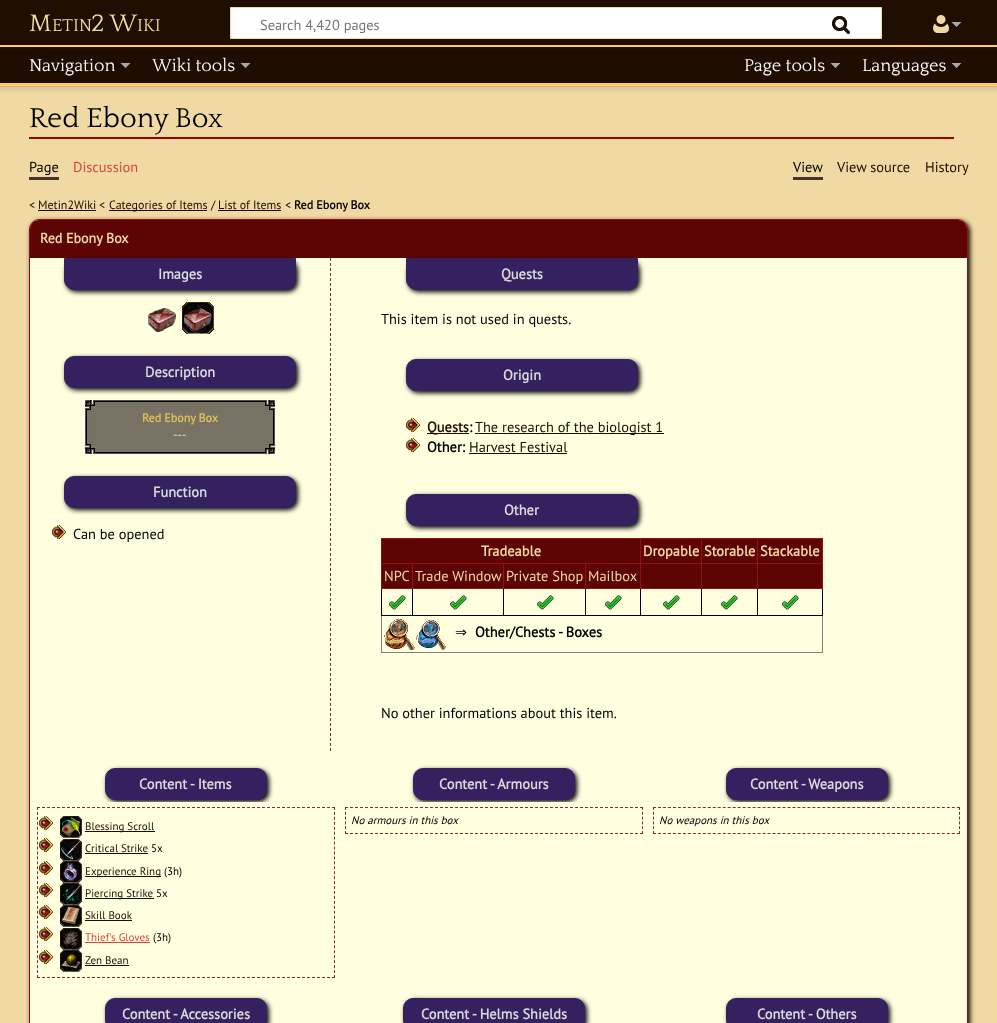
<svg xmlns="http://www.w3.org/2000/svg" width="997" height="1023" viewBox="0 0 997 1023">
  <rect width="100%" height="100%" fill="#f0d9a2"/>
  <path d="M0 45h997v41H0z" fill="#00000033" filter="blur(1px)"/>
  <path d="M-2 46h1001v45H-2z" fill="#00000012" filter="blur(1.5px)"/>
  <path d="M0 0h997v45H0z" fill="#1f0e02"/>
  <path d="M230.5 7.5h651v31H230.5z" fill="#fff" stroke="#f0d9a2"/>
  <image x="832" y="16" width="18" height="18" href="img/1.png"/>
  <image x="832" y="16" width="18" height="18" href="img/2.png"/>
  <image x="933" y="15" width="16" height="18" href="img/3.png"/>
  <path d="M961.5 22L956.5 27L951.5 22Z" fill="#aaa"/>
  <path d="M0 47h997v36H0z" fill="#1e0d00"/>
  <path d="M0 45h997v2H0z" fill="#fece58"/>
  <path d="M0 83h997v3H0z" fill="#fece58"/>
  <path d="M130.5 63L125.5 68L120.5 63Z" fill="#aaa"/>
  <path d="M250.5 63L245.5 68L240.5 63Z" fill="#aaa"/>
  <path d="M840.5 63L835.5 68L830.5 63Z" fill="#aaa"/>
  <path d="M961.5 63L956.5 68L951.5 63Z" fill="#aaa"/>
  <path d="M29 137h925v2H29z" fill="#900"/>
  <path d="M29 177h30v3H29z" fill="#45342c"/>
  <path d="M793 177h30v3H793z" fill="#45342c"/>
  <path d="M38 210h58v1H38z" fill="#1e0d00"/>
  <path d="M109 210h98v1H109z" fill="#1e0d00"/>
  <path d="M218 210h63v1H218z" fill="#1e0d00"/>
  <rect x="31" y="221" width="939" height="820" rx="10" fill="#000" filter="blur(2.5px)"/>
  <path d="M39 219.5H958C963 219.5 967.5 224 967.5 229V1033.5H29.5V229C29.5 224 34 219.5 39 219.5Z" fill="#ffffe0" stroke="#97100d"/>
  <path d="M39 220H958C963 220 967 224 967 229V258H30V229C30 224 34 220 39 220Z" fill="#5d0505"/>
  <path d="M330.5 258V751" fill="none" stroke="#88283a" stroke-dasharray="3 2"/>
  <rect x="66" y="260" width="232" height="32" rx="10" fill="#000" filter="blur(2.5px)"/>
  <path d="M64.5 258.5H295.5V280C295.5 285 291 289.5 286 289.5H74C69 289.5 64.5 285 64.5 280Z" fill="#35215f" stroke="#35215f"/>
  <image x="148" y="308" width="28" height="24" href="img/4.png"/>
  <image x="182" y="302" width="32" height="32" href="img/5.png"/>
  <image x="184" y="308" width="28" height="24" href="img/6.png"/>
  <rect x="66" y="358" width="232" height="32" rx="10" fill="#000" filter="blur(2.5px)"/>
  <rect x="64.5" y="356.5" width="231" height="31" rx="9.5" fill="#35215f" stroke="#35215f"/>
  <image x="85" y="400" width="190" height="10" href="img/7.png"/>
  <image x="85" y="410" width="190" height="34" href="img/8.png"/>
  <image x="85" y="444" width="190" height="10" href="img/9.png"/>
  <rect x="66" y="478" width="232" height="32" rx="10" fill="#000" filter="blur(2.5px)"/>
  <rect x="64.5" y="476.5" width="231" height="31" rx="9.5" fill="#35215f" stroke="#35215f"/>
  <image x="52" y="525" width="14" height="14" href="img/10.png"/>
  <rect x="408" y="260" width="232" height="32" rx="10" fill="#000" filter="blur(2.5px)"/>
  <path d="M406.5 258.5H637.5V280C637.5 285 633 289.5 628 289.5H416C411 289.5 406.5 285 406.5 280Z" fill="#35215f" stroke="#35215f"/>
  <rect x="408" y="361" width="232" height="32" rx="10" fill="#000" filter="blur(2.5px)"/>
  <rect x="406.5" y="359.5" width="231" height="31" rx="9.5" fill="#35215f" stroke="#35215f"/>
  <image x="406" y="418" width="14" height="14" href="img/10.png"/>
  <path d="M427 433h42v1H427z" fill="#1e0d00"/>
  <path d="M475 433h189v1H475z" fill="#1e0d00"/>
  <image x="406" y="438" width="14" height="14" href="img/10.png"/>
  <path d="M469 453h98v1H469z" fill="#1e0d00"/>
  <rect x="408" y="496" width="232" height="32" rx="10" fill="#000" filter="blur(2.5px)"/>
  <rect x="406.5" y="494.5" width="231" height="31" rx="9.5" fill="#35215f" stroke="#35215f"/>
  <path d="M822 616h1v37H822z" fill="#808080"/>
  <path d="M381 652h442v1H381z" fill="#808080"/>
  <path d="M381 616h1v37H381z" fill="#808080"/>
  <path d="M382 539h440v24H382z" fill="#5d0505"/>
  <path d="M381 538h442v1H381z" fill="#97100d"/>
  <path d="M381 563h442v1H381z" fill="#97100d"/>
  <path d="M381 563h1v26H381z" fill="#97100d"/>
  <path d="M381 538h1v26H381z" fill="#97100d"/>
  <path d="M822 588h1v28H822z" fill="#000"/>
  <path d="M822 538h1v51H822z" fill="#97100d"/>
  <path d="M757 615h66v1H757z" fill="#000"/>
  <path d="M757 588h1v28H757z" fill="#000"/>
  <path d="M757 588h66v1H757z" fill="#97100d"/>
  <path d="M382 564h440v24H382z" fill="#5d0505"/>
  <path d="M757 538h1v51H757z" fill="#97100d"/>
  <path d="M701 615h57v1H701z" fill="#000"/>
  <path d="M701 588h1v28H701z" fill="#000"/>
  <path d="M701 588h57v1H701z" fill="#97100d"/>
  <path d="M701 538h1v51H701z" fill="#97100d"/>
  <path d="M640 615h62v1H640z" fill="#000"/>
  <path d="M640 588h1v28H640z" fill="#000"/>
  <path d="M585 615h56v1H585z" fill="#000"/>
  <path d="M585 588h1v28H585z" fill="#000"/>
  <path d="M585 588h56v1H585z" fill="#97100d"/>
  <path d="M640 588h62v1H640z" fill="#97100d"/>
  <path d="M640 538h1v51H640z" fill="#97100d"/>
  <path d="M585 563h1v26H585z" fill="#97100d"/>
  <path d="M503 615h83v1H503z" fill="#000"/>
  <path d="M503 588h1v28H503z" fill="#000"/>
  <path d="M503 588h83v1H503z" fill="#97100d"/>
  <path d="M503 563h1v26H503z" fill="#97100d"/>
  <path d="M412 615h92v1H412z" fill="#000"/>
  <path d="M412 588h1v28H412z" fill="#000"/>
  <path d="M412 588h92v1H412z" fill="#97100d"/>
  <path d="M412 563h1v26H412z" fill="#97100d"/>
  <path d="M381 615h32v1H381z" fill="#000"/>
  <path d="M381 588h1v28H381z" fill="#000"/>
  <path d="M381 588h32v1H381z" fill="#97100d"/>
  <image x="389" y="595" width="17" height="15" href="img/11.png"/>
  <image x="450" y="595" width="17" height="15" href="img/11.png"/>
  <image x="537" y="595" width="17" height="15" href="img/11.png"/>
  <image x="605" y="595" width="17" height="15" href="img/11.png"/>
  <image x="663" y="595" width="17" height="15" href="img/11.png"/>
  <image x="721" y="595" width="17" height="15" href="img/11.png"/>
  <image x="782" y="595" width="17" height="15" href="img/11.png"/>
  <image x="384" y="619" width="31" height="31" href="img/12.png"/>
  <image x="416" y="620" width="30" height="30" href="img/13.png"/>
  <rect x="107" y="770" width="162" height="32" rx="10" fill="#000" filter="blur(2.5px)"/>
  <rect x="105.5" y="768.5" width="161" height="31" rx="9.5" fill="#35215f" stroke="#35215f"/>
  <rect x="415" y="770" width="162" height="32" rx="10" fill="#000" filter="blur(2.5px)"/>
  <rect x="413.5" y="768.5" width="161" height="31" rx="9.5" fill="#35215f" stroke="#35215f"/>
  <rect x="728" y="770" width="162" height="32" rx="10" fill="#000" filter="blur(2.5px)"/>
  <rect x="726.5" y="768.5" width="161" height="31" rx="9.5" fill="#35215f" stroke="#35215f"/>
  <path d="M106 802h785v6H106z" fill="#ffffe0"/>
  <path d="M37 807.5H335" fill="none" stroke="#88283a" stroke-dasharray="3 2"/>
  <path d="M334.5 807V978" fill="none" stroke="#88283a" stroke-dasharray="3 1.94"/>
  <path d="M37 977.5H335" fill="none" stroke="#88283a" stroke-dasharray="3 2"/>
  <path d="M37.5 807V978" fill="none" stroke="#88283a" stroke-dasharray="3 1.94"/>
  <image x="39" y="816" width="14" height="14" href="img/10.png"/>
  <image x="60" y="816" width="22" height="22" href="img/14.png"/>
  <image x="61" y="817" width="19" height="21" href="img/15.png"/>
  <path d="M85 831h70v1H85z" fill="#1e0d00"/>
  <image x="39" y="838" width="14" height="14" href="img/10.png"/>
  <image x="60" y="839" width="22" height="22" href="img/14.png"/>
  <image x="60" y="840" width="22" height="20" href="img/16.png"/>
  <path d="M85 853h63v1H85z" fill="#1e0d00"/>
  <image x="39" y="861" width="14" height="14" href="img/10.png"/>
  <image x="60" y="861" width="22" height="22" href="img/14.png"/>
  <image x="63" y="862" width="14" height="19" href="img/17.png"/>
  <path d="M85 876h76v1H85z" fill="#1e0d00"/>
  <image x="39" y="883" width="14" height="14" href="img/10.png"/>
  <image x="60" y="883" width="22" height="22" href="img/14.png"/>
  <image x="62" y="883" width="20" height="21" href="img/18.png"/>
  <path d="M85 898h69v1H85z" fill="#1e0d00"/>
  <image x="39" y="905" width="14" height="14" href="img/10.png"/>
  <image x="60" y="905" width="22" height="22" href="img/14.png"/>
  <image x="61" y="906" width="19" height="18" href="img/19.png"/>
  <path d="M85 920h47v1H85z" fill="#1e0d00"/>
  <image x="39" y="927" width="14" height="14" href="img/10.png"/>
  <image x="60" y="928" width="22" height="22" href="img/14.png"/>
  <image x="63" y="931" width="15" height="18" href="img/20.png"/>
  <path d="M85 942h65v1H85z" fill="#d44"/>
  <image x="39" y="950" width="14" height="14" href="img/10.png"/>
  <image x="60" y="950" width="22" height="22" href="img/14.png"/>
  <image x="61" y="953" width="21" height="16" href="img/21.png"/>
  <path d="M85 965h44v1H85z" fill="#1e0d00"/>
  <path d="M345 807.5H643" fill="none" stroke="#88283a" stroke-dasharray="3 2"/>
  <path d="M642.5 807V834" fill="none" stroke="#88283a" stroke-dasharray="3 1.8"/>
  <path d="M345 833.5H643" fill="none" stroke="#88283a" stroke-dasharray="3 2"/>
  <path d="M345.5 807V834" fill="none" stroke="#88283a" stroke-dasharray="3 1.8"/>
  <path d="M653 807.5H960" fill="none" stroke="#88283a" stroke-dasharray="3 1.98"/>
  <path d="M959.5 807V834" fill="none" stroke="#88283a" stroke-dasharray="3 1.8"/>
  <path d="M653 833.5H960" fill="none" stroke="#88283a" stroke-dasharray="3 1.98"/>
  <path d="M653.5 807V834" fill="none" stroke="#88283a" stroke-dasharray="3 1.8"/>
  <rect x="107" y="1000" width="162" height="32" rx="10" fill="#000" filter="blur(2.5px)"/>
  <rect x="105.5" y="998.5" width="161" height="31" rx="9.5" fill="#35215f" stroke="#35215f"/>
  <rect x="405" y="1000" width="182" height="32" rx="10" fill="#000" filter="blur(2.5px)"/>
  <rect x="403.5" y="998.5" width="181" height="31" rx="9.5" fill="#35215f" stroke="#35215f"/>
  <rect x="728" y="1000" width="162" height="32" rx="10" fill="#000" filter="blur(2.5px)"/>
  <rect x="726.5" y="998.5" width="161" height="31" rx="9.5" fill="#35215f" stroke="#35215f"/>
  <text x="29" y="31" font-family="Quattrocento" font-size="25" fill="#f0d9a2">M</text>
  <text x="52" y="31" font-family="Quattrocento" font-size="18" fill="#f0d9a2">ETIN</text>
  <text x="91" y="31" font-family="Quattrocento" font-size="25" fill="#f0d9a2">2 W</text>
  <text x="137" y="31" font-family="Quattrocento" font-size="18" fill="#f0d9a2">IKI</text>
  <text x="260" y="30" font-family="PT Sans" font-size="14.4" fill="#757575">Search 4,420 pages</text>
  <g font-family="Quattrocento" font-size="18" fill="#fff">
    <text x="29" y="71">Navigation</text>
    <text x="152" y="71">Wiki tools</text>
    <text x="744" y="71">Page tools</text>
    <text x="862" y="71">Languages</text>
  </g>
  <text x="29" y="127" font-family="Quattrocento" font-size="28.75" fill="#000">Red Ebony Box</text>
  <text x="29" y="172" font-family="PT Sans" font-size="14.4" fill="#000">Page</text>
  <text x="73" y="172" font-family="PT Sans" font-size="14.4" fill="#d44">Discussion</text>
  <text x="793" y="172" font-family="PT Sans" font-size="14.4" fill="#000">View</text>
  <g font-family="PT Sans" font-size="14.4" fill="#1e0d00">
    <text x="837" y="172">View source</text>
    <text x="925" y="172">History</text>
  </g>
  <text x="29" y="209" font-family="PT Sans" font-size="12" fill="#000">&lt;</text>
  <text x="38" y="209" font-family="PT Sans" font-size="12" fill="#1e0d00">Metin2Wiki</text>
  <text x="99" y="209" font-family="PT Sans" font-size="12" fill="#000">&lt;</text>
  <text x="109" y="209" font-family="PT Sans" font-size="12" fill="#1e0d00">Categories of Items</text>
  <text x="211" y="209" font-family="PT Sans" font-size="12" fill="#000">/</text>
  <text x="218" y="209" font-family="PT Sans" font-size="12" fill="#1e0d00">List of Items</text>
  <text x="285" y="209" font-family="PT Sans" font-size="12" fill="#000">&lt;</text>
  <text x="294" y="209" font-family="PT Sans" font-size="12" font-weight="bold" fill="#000">Red Ebony Box</text>
  <text x="40" y="243" font-family="PT Sans" font-size="14" font-weight="bold" fill="#f0d9a2">Red Ebony Box</text>
  <g font-family="PT Sans" font-size="14.4" font-weight="bold" fill="#dadada">
    <text x="158" y="279">Images</text>
    <text x="145" y="377">Description</text>
  </g>
  <text x="142" y="422" font-family="PT Sans" font-size="12" font-weight="bold" fill="#dec257">Red Ebony Box</text>
  <text x="173" y="439" font-family="PT Sans" font-size="12" font-weight="bold" fill="#cbc5b7">---</text>
  <text x="153" y="497" font-family="PT Sans" font-size="14.4" font-weight="bold" fill="#dadada">Function</text>
  <text x="73" y="539" font-family="PT Sans" font-size="14.4" fill="#000">Can be opened</text>
  <text x="501" y="279" font-family="PT Sans" font-size="14.4" font-weight="bold" fill="#dadada">Quests</text>
  <text x="381" y="324" font-family="PT Sans" font-size="14.4" fill="#000">This item is not used in quests.</text>
  <text x="503" y="380" font-family="PT Sans" font-size="14.4" font-weight="bold" fill="#dadada">Origin</text>
  <text x="427" y="432" font-family="PT Sans" font-size="14.4" font-weight="bold" fill="#1e0d00">Quests</text>
  <text x="469" y="432" font-family="PT Sans" font-size="14.4" font-weight="bold" fill="#000">:</text>
  <text x="475" y="432" font-family="PT Sans" font-size="14.4" fill="#1e0d00">The research of the biologist 1</text>
  <text x="427" y="452" font-family="PT Sans" font-size="14.4" font-weight="bold" fill="#000">Other:</text>
  <text x="469" y="452" font-family="PT Sans" font-size="14.4" fill="#1e0d00">Harvest Festival</text>
  <text x="504" y="515" font-family="PT Sans" font-size="14.4" font-weight="bold" fill="#dadada">Other</text>
  <g font-family="PT Sans" font-size="14.4" font-weight="bold" fill="#f0d9a2">
    <text x="481" y="556">Tradeable</text>
    <text x="643" y="556">Dropable</text>
    <text x="704" y="556">Storable</text>
    <text x="760" y="556">Stackable</text>
  </g>
  <g font-family="PT Sans" font-size="14.4" fill="#f0d9a2">
    <text x="384" y="581">NPC</text>
    <text x="415" y="581">Trade Window</text>
    <text x="506" y="581">Private Shop</text>
    <text x="588" y="581">Mailbox</text>
  </g>
  <text x="455" y="637" font-family="DejaVu Sans" font-size="14.4" fill="#000">⇒</text>
  <text x="475" y="637" font-family="PT Sans" font-size="14.4" font-weight="bold" fill="#000">Other/Chests - Boxes</text>
  <text x="381" y="718" font-family="PT Sans" font-size="14.4" fill="#000">No other informations about this item.</text>
  <g font-family="PT Sans" font-size="14.4" font-weight="bold" fill="#dadada">
    <text x="139" y="789">Content - Items</text>
    <text x="439" y="789">Content - Armours</text>
    <text x="750" y="789">Content - Weapons</text>
  </g>
  <g font-family="PT Sans" font-size="11" fill="#1e0d00">
    <text x="85" y="830">Blessing Scroll</text>
    <text x="85" y="852">Critical Strike</text>
  </g>
  <text x="151" y="852" font-family="PT Sans" font-size="11" fill="#000">5x</text>
  <text x="85" y="875" font-family="PT Sans" font-size="11" fill="#1e0d00">Experience Ring</text>
  <text x="164" y="875" font-family="PT Sans" font-size="11" fill="#000">(3h)</text>
  <text x="85" y="897" font-family="PT Sans" font-size="11" fill="#1e0d00">Piercing Strike</text>
  <text x="156" y="897" font-family="PT Sans" font-size="11" fill="#000">5x</text>
  <text x="85" y="919" font-family="PT Sans" font-size="11" fill="#1e0d00">Skill Book</text>
  <text x="85" y="941" font-family="PT Sans" font-size="11" fill="#d44">Thief's Gloves</text>
  <text x="153" y="941" font-family="PT Sans" font-size="11" fill="#000">(3h)</text>
  <text x="85" y="964" font-family="PT Sans" font-size="11" fill="#1e0d00">Zen Bean</text>
  <g font-family="PT Sans" font-size="11" font-style="italic" fill="#000">
    <text x="351" y="824">No armours in this box</text>
    <text x="659" y="824">No weapons in this box</text>
  </g>
  <g font-family="PT Sans" font-size="14.4" font-weight="bold" fill="#dadada">
    <text x="122" y="1019">Content - Accessories</text>
    <text x="421" y="1019">Content - Helms Shields</text>
    <text x="757" y="1019">Content - Others</text>
  </g>
</svg>
